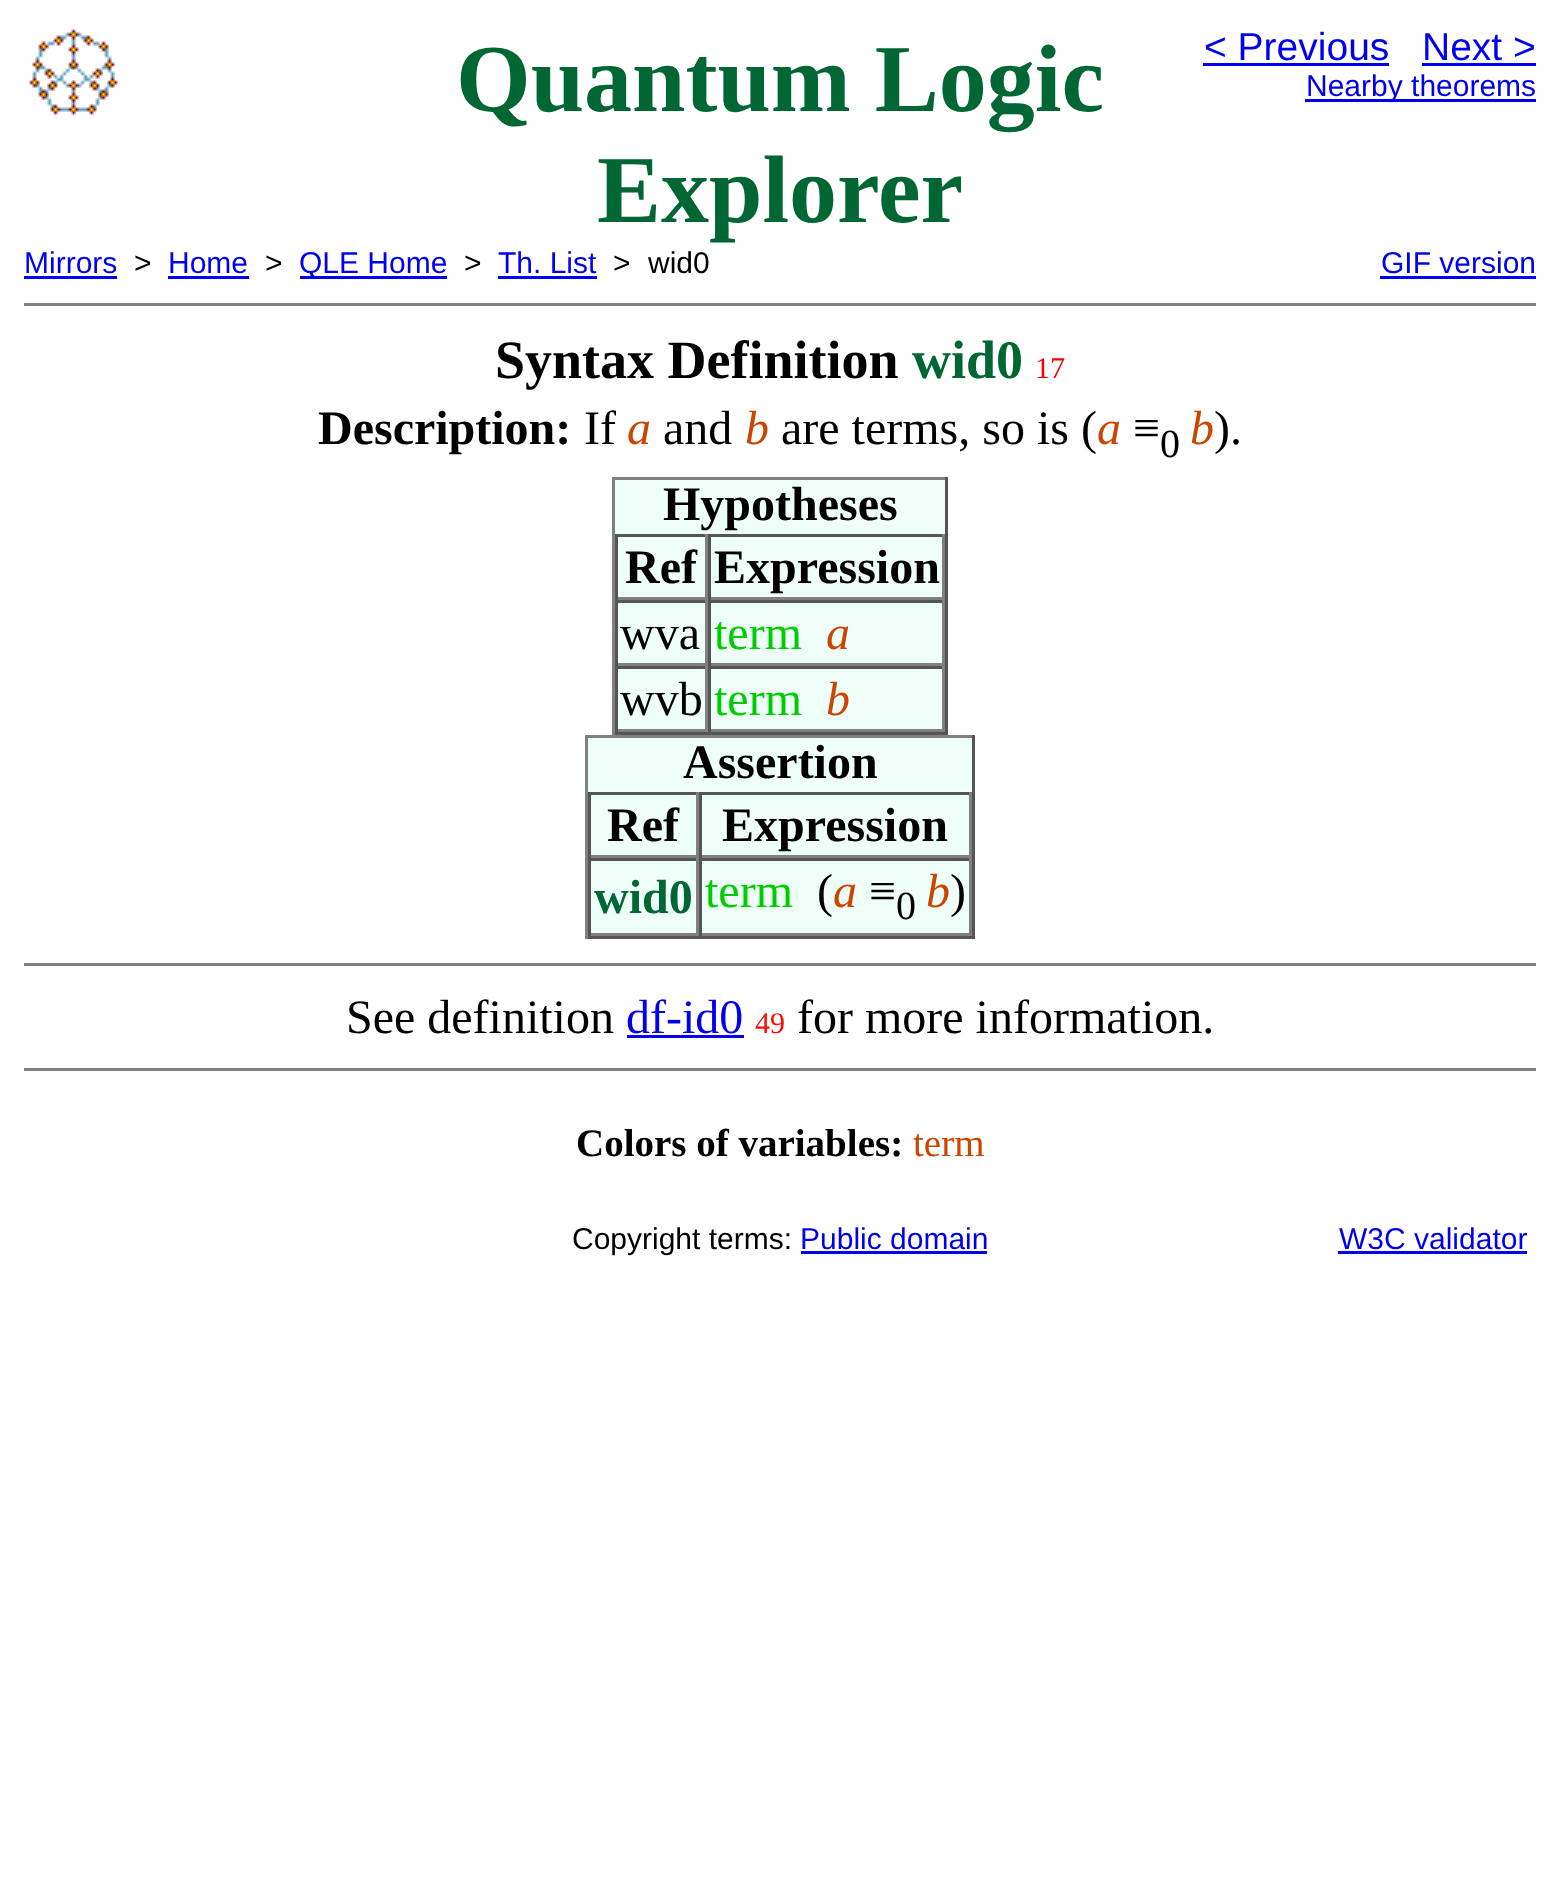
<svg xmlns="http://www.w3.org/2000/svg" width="1560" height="1894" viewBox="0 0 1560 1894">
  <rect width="100%" height="100%" fill="#fff"/>
  <image x="29" y="29" width="89" height="86" href="img/1.png"/>
  <path d="M1203 63h186v3H1203z" fill="#00e"/>
  <path d="M1422 63h114v3H1422z" fill="#00e"/>
  <path d="M1305 99h231v3H1305z" fill="#00e"/>
  <path d="M24 276h93v3H24z" fill="#00e"/>
  <path d="M168 276h81v3H168z" fill="#00e"/>
  <path d="M300 276h147v3H300z" fill="#00e"/>
  <path d="M498 276h99v3H498z" fill="#00e"/>
  <path d="M1380 276h156v3H1380z" fill="#00e"/>
  <path d="M24 303h1512v3H24z" fill="#808080"/>
  <path d="M615 480h330v249H615z" fill="#eefffa"/>
  <path d="M612 477h336v3H612z" fill="#808080"/>
  <path d="M945 477h3v258H945z" fill="#555"/>
  <path d="M612 732h336v3H612z" fill="#555"/>
  <path d="M612 477h3v258H612z" fill="#808080"/>
  <path d="M615 534h330v3H615z" fill="#555"/>
  <path d="M705 534h3v66H705z" fill="#808080"/>
  <path d="M615 597h93v3H615z" fill="#808080"/>
  <path d="M615 534h3v66H615z" fill="#555"/>
  <path d="M942 534h3v66H942z" fill="#808080"/>
  <path d="M708 597h237v3H708z" fill="#808080"/>
  <path d="M708 534h3v66H708z" fill="#555"/>
  <path d="M615 600h330v3H615z" fill="#555"/>
  <path d="M705 600h3v66H705z" fill="#808080"/>
  <path d="M615 663h93v3H615z" fill="#808080"/>
  <path d="M615 600h3v66H615z" fill="#555"/>
  <path d="M942 600h3v66H942z" fill="#808080"/>
  <path d="M708 663h237v3H708z" fill="#808080"/>
  <path d="M708 600h3v66H708z" fill="#555"/>
  <path d="M615 666h330v3H615z" fill="#555"/>
  <path d="M705 666h3v66H705z" fill="#808080"/>
  <path d="M615 729h93v3H615z" fill="#808080"/>
  <path d="M615 666h3v66H615z" fill="#555"/>
  <path d="M942 666h3v66H942z" fill="#808080"/>
  <path d="M708 729h237v3H708z" fill="#808080"/>
  <path d="M708 666h3v66H708z" fill="#555"/>
  <path d="M588 738h384v195H588z" fill="#eefffa"/>
  <path d="M585 735h390v3H585z" fill="#808080"/>
  <path d="M972 735h3v204H972z" fill="#555"/>
  <path d="M585 936h390v3H585z" fill="#555"/>
  <path d="M585 735h3v204H585z" fill="#808080"/>
  <path d="M588 792h384v3H588z" fill="#555"/>
  <path d="M696 792h3v66H696z" fill="#808080"/>
  <path d="M588 855h111v3H588z" fill="#808080"/>
  <path d="M588 792h3v66H588z" fill="#555"/>
  <path d="M969 792h3v66H969z" fill="#808080"/>
  <path d="M699 855h273v3H699z" fill="#808080"/>
  <path d="M699 792h3v66H699z" fill="#555"/>
  <path d="M588 858h384v3H588z" fill="#555"/>
  <path d="M696 858h3v78H696z" fill="#808080"/>
  <path d="M588 933h111v3H588z" fill="#808080"/>
  <path d="M588 858h3v78H588z" fill="#555"/>
  <path d="M969 858h3v78H969z" fill="#808080"/>
  <path d="M699 933h273v3H699z" fill="#808080"/>
  <path d="M699 858h3v78H699z" fill="#555"/>
  <path d="M24 963h1512v3H24z" fill="#808080"/>
  <path d="M627 1035h117v3H627z" fill="#00e"/>
  <path d="M24 1068h1512v3H24z" fill="#808080"/>
  <path d="M801 1251h186v3H801z" fill="#00e"/>
  <path d="M1338 1251h189v3H1338z" fill="#00e"/>
  <g font-family="Liberation Serif" font-size="96" font-weight="bold" fill="#063">
    <text x="456" y="111">Quantum Logic</text>
    <text x="597" y="222">Explorer</text>
  </g>
  <g font-family="Liberation Sans" font-size="39" fill="#00e">
    <text x="1204" y="60">&lt; Previous</text>
    <text x="1422" y="60">Next &gt;</text>
  </g>
  <g font-family="Liberation Sans" font-size="30" fill="#00e">
    <text x="1306" y="96">Nearby theorems</text>
    <text x="24" y="273">Mirrors</text>
  </g>
  <text x="134" y="273" font-family="Liberation Sans" font-size="30" fill="#000">&gt;</text>
  <text x="168" y="273" font-family="Liberation Sans" font-size="30" fill="#00e">Home</text>
  <text x="265" y="273" font-family="Liberation Sans" font-size="30" fill="#000">&gt;</text>
  <text x="299" y="273" font-family="Liberation Sans" font-size="30" fill="#00e">QLE Home</text>
  <text x="464" y="273" font-family="Liberation Sans" font-size="30" fill="#000">&gt;</text>
  <text x="498" y="273" font-family="Liberation Sans" font-size="30" fill="#00e">Th. List</text>
  <g font-family="Liberation Sans" font-size="30" fill="#000">
    <text x="613" y="273">&gt;</text>
    <text x="648" y="273">wid0</text>
  </g>
  <text x="1381" y="273" font-family="Liberation Sans" font-size="30" fill="#00e">GIF version</text>
  <text x="495" y="378" font-family="Liberation Serif" font-size="54" font-weight="bold" fill="#000">Syntax Definition</text>
  <text x="912" y="378" font-family="Liberation Serif" font-size="54" font-weight="bold" fill="#063">wid0</text>
  <text x="1035" y="378" font-family="Liberation Serif" font-size="30" fill="#f90400">17</text>
  <text x="318" y="444" font-family="Liberation Serif" font-size="48" font-weight="bold" fill="#000">Description:</text>
  <text x="584" y="444" font-family="Liberation Serif" font-size="48" fill="#000">If</text>
  <text x="627" y="444" font-family="Liberation Serif" font-size="48" font-style="italic" fill="#c40">a</text>
  <text x="663" y="444" font-family="Liberation Serif" font-size="48" fill="#000">and</text>
  <text x="745" y="444" font-family="Liberation Serif" font-size="48" font-style="italic" fill="#c40">b</text>
  <text x="781" y="444" font-family="Liberation Serif" font-size="48" fill="#000">are terms, so is (</text>
  <text x="1097" y="444" font-family="Liberation Serif" font-size="48" font-style="italic" fill="#c40">a</text>
  <text x="1133" y="444" font-family="Liberation Serif" font-size="48" fill="#000">≡</text>
  <text x="1160" y="457" font-family="Liberation Serif" font-size="40" fill="#000">0</text>
  <text x="1190" y="444" font-family="Liberation Serif" font-size="48" font-style="italic" fill="#c40">b</text>
  <text x="1214" y="444" font-family="Liberation Serif" font-size="48" fill="#000">).</text>
  <g font-family="Liberation Serif" font-size="48" font-weight="bold" fill="#000">
    <text x="663" y="520">Hypotheses</text>
    <text x="625" y="583">Ref</text>
    <text x="714" y="583">Expression</text>
  </g>
  <text x="620" y="649" font-family="Liberation Serif" font-size="48" fill="#000">wva</text>
  <text x="714" y="649" font-family="Liberation Serif" font-size="48" fill="#0c0">term</text>
  <text x="826" y="649" font-family="Liberation Serif" font-size="48" font-style="italic" fill="#c40">a</text>
  <text x="620" y="715" font-family="Liberation Serif" font-size="48" fill="#000">wvb</text>
  <text x="714" y="715" font-family="Liberation Serif" font-size="48" fill="#0c0">term</text>
  <text x="826" y="715" font-family="Liberation Serif" font-size="48" font-style="italic" fill="#c40">b</text>
  <g font-family="Liberation Serif" font-size="48" font-weight="bold" fill="#000">
    <text x="683" y="778">Assertion</text>
    <text x="607" y="841">Ref</text>
    <text x="722" y="841">Expression</text>
  </g>
  <text x="594" y="913" font-family="Liberation Serif" font-size="48" font-weight="bold" fill="#063">wid0</text>
  <text x="705" y="907" font-family="Liberation Serif" font-size="48" fill="#0c0">term</text>
  <text x="817" y="907" font-family="Liberation Serif" font-size="48" fill="#000">(</text>
  <text x="833" y="907" font-family="Liberation Serif" font-size="48" font-style="italic" fill="#c40">a</text>
  <text x="869" y="907" font-family="Liberation Serif" font-size="48" fill="#000">≡</text>
  <text x="896" y="919" font-family="Liberation Serif" font-size="40" fill="#000">0</text>
  <text x="926" y="907" font-family="Liberation Serif" font-size="48" font-style="italic" fill="#c40">b</text>
  <g font-family="Liberation Serif" font-size="48" fill="#000">
    <text x="950" y="907">)</text>
    <text x="346" y="1033">See definition</text>
  </g>
  <text x="626" y="1033" font-family="Liberation Serif" font-size="48" fill="#00e">df-id0</text>
  <text x="755" y="1033" font-family="Liberation Serif" font-size="30" fill="#f60f00">49</text>
  <text x="797" y="1033" font-family="Liberation Serif" font-size="48" fill="#000">for more information.</text>
  <text x="576" y="1156" font-family="Liberation Serif" font-size="39" font-weight="bold" fill="#000">Colors of variables:</text>
  <text x="913" y="1156" font-family="Liberation Serif" font-size="39" fill="#c40">term</text>
  <text x="572" y="1249" font-family="Liberation Sans" font-size="30" fill="#000">Copyright terms:</text>
  <g font-family="Liberation Sans" font-size="30" fill="#00e">
    <text x="800" y="1249">Public domain</text>
    <text x="1339" y="1249">W3C validator</text>
  </g>
</svg>
